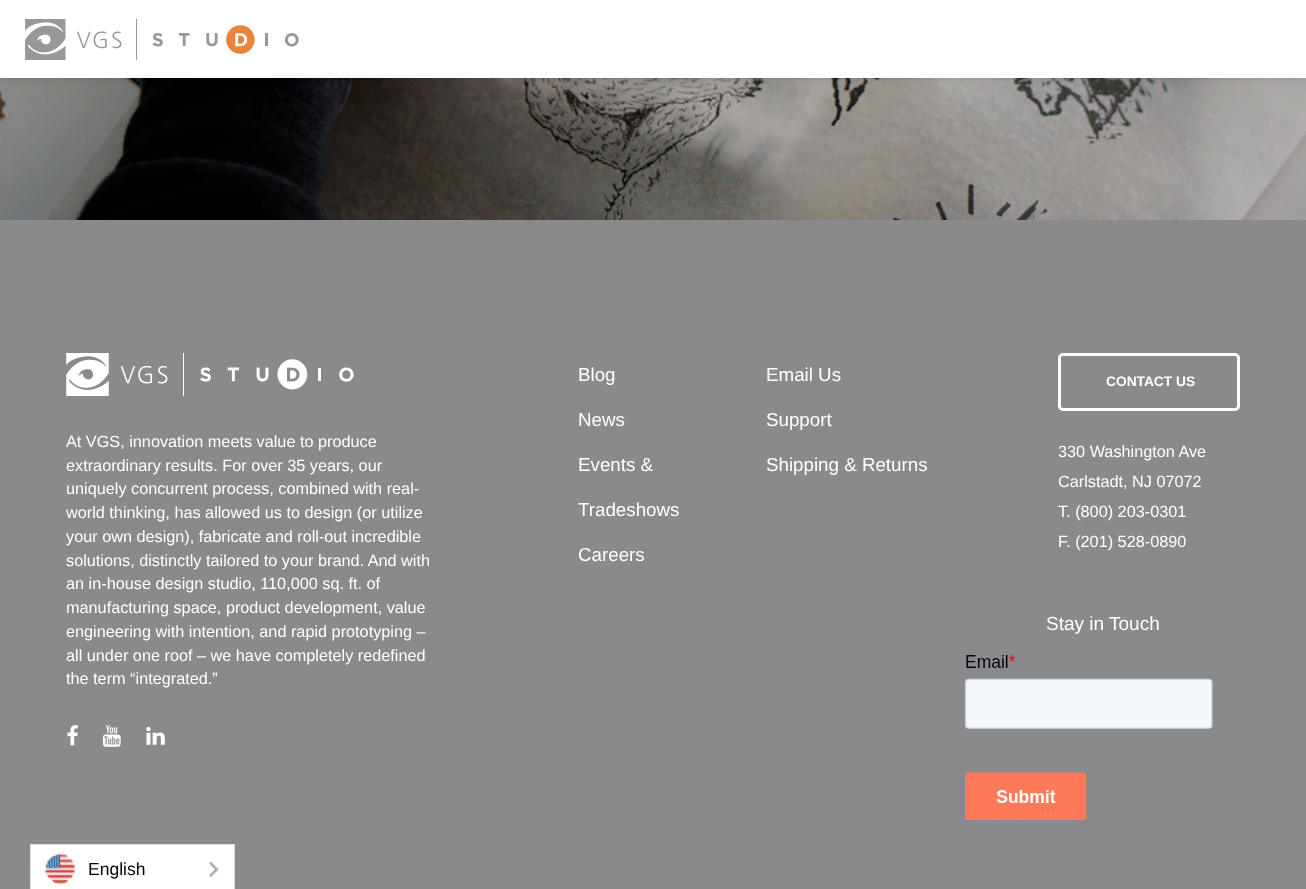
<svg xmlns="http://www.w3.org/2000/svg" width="1306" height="889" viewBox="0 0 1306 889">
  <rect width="100%" height="100%" fill="#fff"/>
  <image x="0" y="78" width="1306" height="142" href="img/2.png"/>
  <path d="M0 0h1306v78H0z" fill="#00000026" filter="blur(3px)"/>
  <path d="M0 0h1306v78H0z" fill="#fff"/>
  <image x="25" y="19" width="274" height="41" href="img/1.png"/>
  <path d="M0 220h1306v669H0z" fill="#8a8a8d"/>
  <image x="66" y="353" width="288" height="43" href="img/3.png"/>
  <image x="67" y="725" width="11" height="21" href="img/4.png"/>
  <image x="102" y="725" width="19" height="22" href="img/5.png"/>
  <image x="146" y="727" width="19" height="18" href="img/6.png"/>
  <rect x="1059.5" y="354.5" width="179" height="55" rx="3.5" fill="none" stroke="#fff" stroke-width="3"/>
  <image x="965" y="655" width="248" height="165" href="img/7.png"/>
  <path d="M31 845h203v44H31z" fill="#fff"/>
  <path d="M30 844h205v1H30z" fill="#e0e0e0"/>
  <path d="M234 844h1v45H234z" fill="#e0e0e0"/>
  <path d="M30 844h1v45H30z" fill="#e0e0e0"/>
  <image x="45" y="853" width="30" height="32" href="img/8.png"/>
  <image x="208" y="861" width="11" height="17" href="img/9.png"/>
  <g font-family="Liberation Sans" font-size="16.25" fill="#fff">
    <text x="66" y="447">At VGS, innovation meets value to produce</text>
    <text x="66" y="471">extraordinary results. For over 35 years, our</text>
    <text x="66" y="494">uniquely concurrent process, combined with real-</text>
    <text x="66" y="518">world thinking, has allowed us to design (or utilize</text>
    <text x="66" y="542">your own design), fabricate and roll-out incredible</text>
    <text x="66" y="566">solutions, distinctly tailored to your brand. And with</text>
    <text x="66" y="589">an in-house design studio, 110,000 sq. ft. of</text>
    <text x="66" y="613">manufacturing space, product development, value</text>
    <text x="66" y="637">engineering with intention, and rapid prototyping –</text>
    <text x="66" y="661">all under one roof – we have completely redefined</text>
    <text x="66" y="684">the term “integrated.”</text>
  </g>
  <g font-family="Liberation Sans" font-size="18.75" fill="#fff">
    <text x="578" y="381">Blog</text>
    <text x="578" y="426">News</text>
    <text x="578" y="471">Events &amp;</text>
    <text x="578" y="516">Tradeshows</text>
    <text x="578" y="561">Careers</text>
    <text x="766" y="381">Email Us</text>
    <text x="766" y="426">Support</text>
    <text x="766" y="471">Shipping &amp; Returns</text>
  </g>
  <text x="1106" y="386" font-family="Liberation Sans" font-size="13.75" font-weight="bold" fill="#fff">CONTACT US</text>
  <g font-family="Liberation Sans" font-size="16.25" fill="#fff">
    <text x="1058" y="457">330 Washington Ave</text>
    <text x="1058" y="487">Carlstadt, NJ 07072</text>
    <text x="1058" y="517">T. (800) 203-0301</text>
    <text x="1058" y="547">F. (201) 528-0890</text>
  </g>
  <text x="1046" y="630" font-family="Liberation Sans" font-size="19" fill="#fff">Stay in Touch</text>
  <text x="88" y="875" font-family="Liberation Sans" font-size="17.5" fill="#000">English</text>
</svg>
